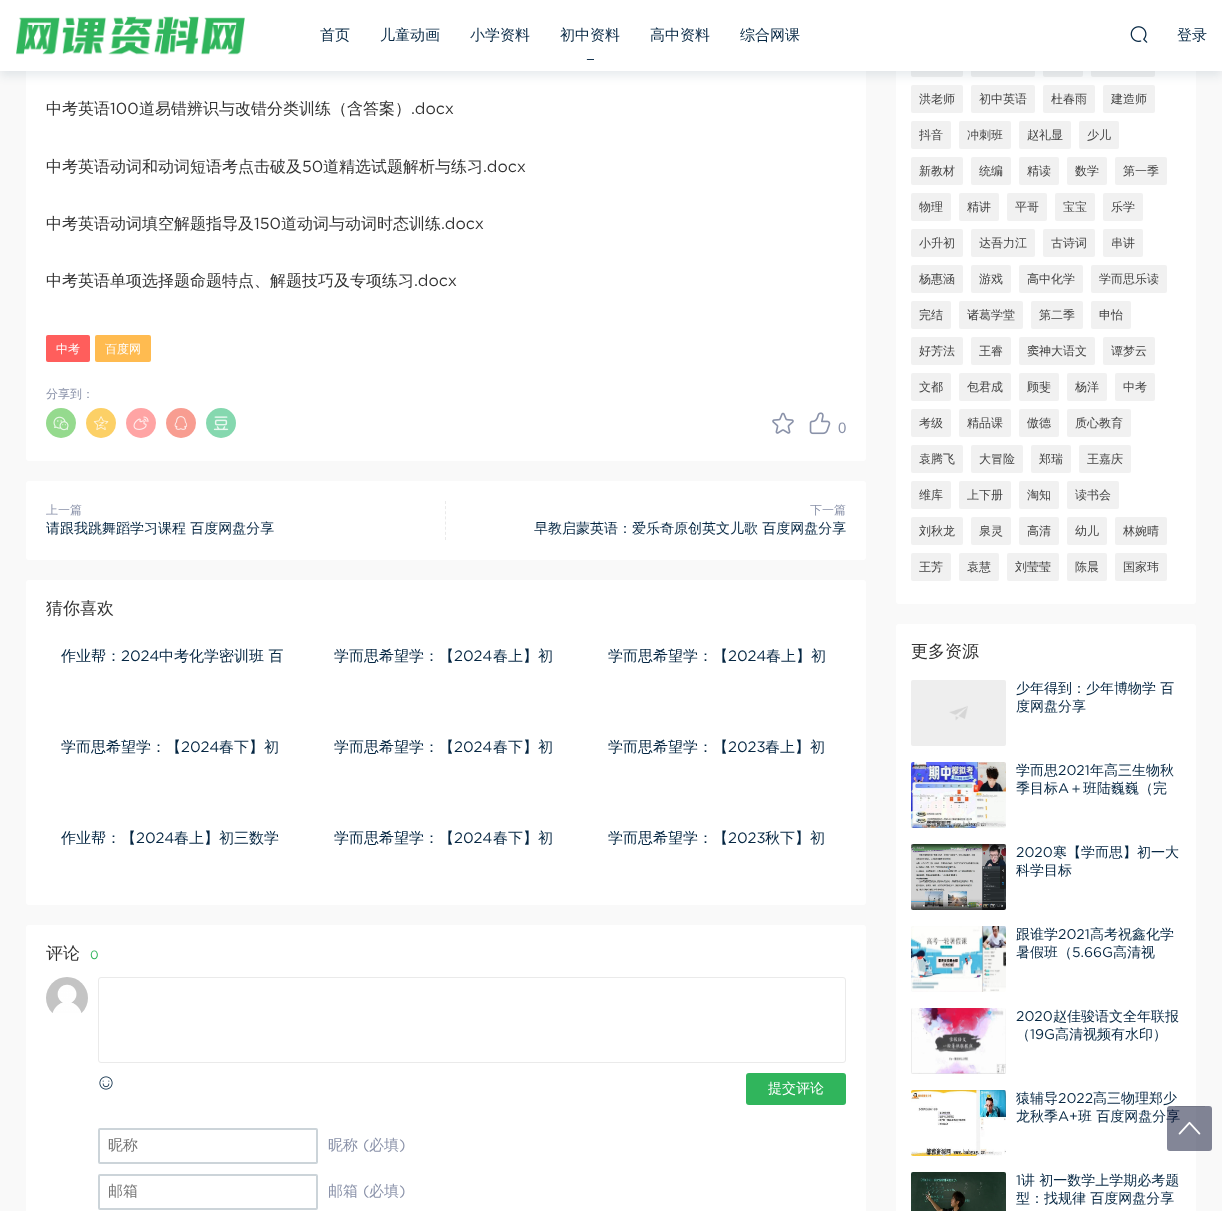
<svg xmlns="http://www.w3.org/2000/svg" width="1222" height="1211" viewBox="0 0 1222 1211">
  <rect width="100%" height="100%" fill="#f9f9f9"/>
  <rect x="26" y="-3" width="840" height="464" rx="3" fill="#fff"/>
  <rect x="896" y="-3" width="300" height="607" rx="3" fill="#fff"/>
  <rect x="911" y="49" width="52" height="28" rx="2" fill="#f1f1f1"/>
  <rect x="971" y="49" width="64" height="28" rx="2" fill="#f1f1f1"/>
  <rect x="1043" y="49" width="40" height="28" rx="2" fill="#f1f1f1"/>
  <rect x="1091" y="49" width="64" height="28" rx="2" fill="#f1f1f1"/>
  <rect x="911" y="85" width="52" height="28" rx="2" fill="#f1f1f1"/>
  <rect x="971" y="85" width="64" height="28" rx="2" fill="#f1f1f1"/>
  <rect x="1043" y="85" width="52" height="28" rx="2" fill="#f1f1f1"/>
  <rect x="1103" y="85" width="52" height="28" rx="2" fill="#f1f1f1"/>
  <path d="M0 5h1222v71H0z" fill="#113a5d1a" filter="blur(5px)"/>
  <path d="M0 0h1222v71H0z" fill="#fff"/>
  <image x="16" y="16" width="229" height="39" href="img/1.png"/>
  <image x="586" y="59" width="8" height="1" href="img/2.png"/>
  <image x="1130" y="26" width="18" height="17" href="img/3.png"/>
  <rect x="46" y="335" width="44" height="27" rx="2" fill="#ff5e5c"/>
  <rect x="95" y="335" width="56" height="27" rx="2" fill="#ffbb50"/>
  <circle cx="61" cy="423" r="15" fill="#95da8e"/>
  <image x="53" y="416" width="16" height="15" href="img/4.png"/>
  <circle cx="101" cy="423" r="15" fill="#fcd066"/>
  <image x="93" y="416" width="16" height="14" href="img/5.png"/>
  <circle cx="141" cy="423" r="15" fill="#ffa4a4"/>
  <image x="133" y="416" width="16" height="14" href="img/6.png"/>
  <circle cx="181" cy="423" r="15" fill="#f89d91"/>
  <image x="174" y="416" width="14" height="14" href="img/7.png"/>
  <circle cx="221" cy="423" r="15" fill="#85d8af"/>
  <image x="213" y="416" width="16" height="15" href="img/8.png"/>
  <image x="772" y="412" width="22" height="22" href="img/9.png"/>
  <image x="809" y="412" width="22" height="23" href="img/10.png"/>
  <rect x="26" y="481" width="840" height="79" rx="3" fill="#fff"/>
  <path d="M445.5 501V540" fill="none" stroke="#eaeaea" stroke-dasharray="3 2.14"/>
  <rect x="26" y="580" width="840" height="325" rx="3" fill="#fff"/>
  <rect x="26" y="925" width="840" height="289" rx="3" fill="#fff"/>
  <image x="46" y="977" width="42" height="36" href="img/11.png"/>
  <rect x="98.5" y="977.5" width="747" height="85" rx="2.5" fill="none" stroke="#eaeaea"/>
  <image x="99" y="1076" width="14" height="14" href="img/12.png"/>
  <rect x="746" y="1073" width="100" height="32" rx="3" fill="#30b55c"/>
  <rect x="99" y="1129" width="218" height="34" rx="1" fill="none" stroke="#ccd4d9" stroke-width="2"/>
  <rect x="99" y="1175" width="218" height="34" rx="1" fill="none" stroke="#ccd4d9" stroke-width="2"/>
  <rect x="911" y="121" width="40" height="28" rx="2" fill="#f1f1f1"/>
  <rect x="959" y="121" width="52" height="28" rx="2" fill="#f1f1f1"/>
  <rect x="1019" y="121" width="52" height="28" rx="2" fill="#f1f1f1"/>
  <rect x="1079" y="121" width="40" height="28" rx="2" fill="#f1f1f1"/>
  <rect x="911" y="157" width="52" height="28" rx="2" fill="#f1f1f1"/>
  <rect x="971" y="157" width="40" height="28" rx="2" fill="#f1f1f1"/>
  <rect x="1019" y="157" width="40" height="28" rx="2" fill="#f1f1f1"/>
  <rect x="1067" y="157" width="40" height="28" rx="2" fill="#f1f1f1"/>
  <rect x="1115" y="157" width="52" height="28" rx="2" fill="#f1f1f1"/>
  <rect x="911" y="193" width="40" height="28" rx="2" fill="#f1f1f1"/>
  <rect x="959" y="193" width="40" height="28" rx="2" fill="#f1f1f1"/>
  <rect x="1007" y="193" width="40" height="28" rx="2" fill="#f1f1f1"/>
  <rect x="1055" y="193" width="40" height="28" rx="2" fill="#f1f1f1"/>
  <rect x="1103" y="193" width="40" height="28" rx="2" fill="#f1f1f1"/>
  <rect x="911" y="229" width="52" height="28" rx="2" fill="#f1f1f1"/>
  <rect x="971" y="229" width="64" height="28" rx="2" fill="#f1f1f1"/>
  <rect x="1043" y="229" width="52" height="28" rx="2" fill="#f1f1f1"/>
  <rect x="1103" y="229" width="40" height="28" rx="2" fill="#f1f1f1"/>
  <rect x="911" y="265" width="52" height="28" rx="2" fill="#f1f1f1"/>
  <rect x="971" y="265" width="40" height="28" rx="2" fill="#f1f1f1"/>
  <rect x="1019" y="265" width="64" height="28" rx="2" fill="#f1f1f1"/>
  <rect x="1091" y="265" width="76" height="28" rx="2" fill="#f1f1f1"/>
  <rect x="911" y="301" width="40" height="28" rx="2" fill="#f1f1f1"/>
  <rect x="959" y="301" width="64" height="28" rx="2" fill="#f1f1f1"/>
  <rect x="1031" y="301" width="52" height="28" rx="2" fill="#f1f1f1"/>
  <rect x="1091" y="301" width="40" height="28" rx="2" fill="#f1f1f1"/>
  <rect x="911" y="337" width="52" height="28" rx="2" fill="#f1f1f1"/>
  <rect x="971" y="337" width="40" height="28" rx="2" fill="#f1f1f1"/>
  <rect x="1019" y="337" width="76" height="28" rx="2" fill="#f1f1f1"/>
  <rect x="1103" y="337" width="52" height="28" rx="2" fill="#f1f1f1"/>
  <rect x="911" y="373" width="40" height="28" rx="2" fill="#f1f1f1"/>
  <rect x="959" y="373" width="52" height="28" rx="2" fill="#f1f1f1"/>
  <rect x="1019" y="373" width="40" height="28" rx="2" fill="#f1f1f1"/>
  <rect x="1067" y="373" width="40" height="28" rx="2" fill="#f1f1f1"/>
  <rect x="1115" y="373" width="40" height="28" rx="2" fill="#f1f1f1"/>
  <rect x="911" y="409" width="40" height="28" rx="2" fill="#f1f1f1"/>
  <rect x="959" y="409" width="52" height="28" rx="2" fill="#f1f1f1"/>
  <rect x="1019" y="409" width="40" height="28" rx="2" fill="#f1f1f1"/>
  <rect x="1067" y="409" width="64" height="28" rx="2" fill="#f1f1f1"/>
  <rect x="911" y="445" width="52" height="28" rx="2" fill="#f1f1f1"/>
  <rect x="971" y="445" width="52" height="28" rx="2" fill="#f1f1f1"/>
  <rect x="1031" y="445" width="40" height="28" rx="2" fill="#f1f1f1"/>
  <rect x="1079" y="445" width="52" height="28" rx="2" fill="#f1f1f1"/>
  <rect x="911" y="481" width="40" height="28" rx="2" fill="#f1f1f1"/>
  <rect x="959" y="481" width="52" height="28" rx="2" fill="#f1f1f1"/>
  <rect x="1019" y="481" width="40" height="28" rx="2" fill="#f1f1f1"/>
  <rect x="1067" y="481" width="52" height="28" rx="2" fill="#f1f1f1"/>
  <rect x="911" y="517" width="52" height="28" rx="2" fill="#f1f1f1"/>
  <rect x="971" y="517" width="40" height="28" rx="2" fill="#f1f1f1"/>
  <rect x="1019" y="517" width="40" height="28" rx="2" fill="#f1f1f1"/>
  <rect x="1067" y="517" width="40" height="28" rx="2" fill="#f1f1f1"/>
  <rect x="1115" y="517" width="52" height="28" rx="2" fill="#f1f1f1"/>
  <rect x="911" y="553" width="40" height="28" rx="2" fill="#f1f1f1"/>
  <rect x="959" y="553" width="40" height="28" rx="2" fill="#f1f1f1"/>
  <rect x="1007" y="553" width="52" height="28" rx="2" fill="#f1f1f1"/>
  <rect x="1067" y="553" width="40" height="28" rx="2" fill="#f1f1f1"/>
  <rect x="1115" y="553" width="52" height="28" rx="2" fill="#f1f1f1"/>
  <rect x="896" y="624" width="300" height="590" rx="3" fill="#fff"/>
  <image x="911" y="680" width="95" height="66" href="img/13.png"/>
  <image x="911" y="762" width="95" height="66" href="img/14.png"/>
  <image x="911" y="844" width="95" height="66" href="img/15.png"/>
  <image x="911" y="926" width="95" height="66" href="img/16.png"/>
  <image x="911" y="1008" width="95" height="66" href="img/17.png"/>
  <image x="911" y="1090" width="95" height="66" href="img/18.png"/>
  <image x="911" y="1172" width="95" height="39" href="img/19.png"/>
  <g font-family="WenQuanYi Zen Hei" font-size="15" font-weight="500" fill="#062743">
    <text x="320" y="40">首页</text>
    <text x="380" y="40">儿童动画</text>
    <text x="470" y="40">小学资料</text>
    <text x="560" y="40">初中资料</text>
    <text x="650" y="40">高中资料</text>
    <text x="740" y="40">综合网课</text>
    <text x="1177" y="40">登录</text>
  </g>
  <text x="46" y="114" font-family="WenQuanYi Zen Hei" font-size="16" font-weight="500" fill="#333">中考英语</text>
  <text x="110" y="114" font-family="Gotham" font-size="16" fill="#333">100</text>
  <text x="139" y="114" font-family="WenQuanYi Zen Hei" font-size="16" font-weight="500" fill="#333">道易错辨识与改错分类训练（含答案）</text>
  <text x="411" y="114" font-family="Gotham" font-size="16" fill="#333">.docx</text>
  <text x="46" y="172" font-family="WenQuanYi Zen Hei" font-size="16" font-weight="500" fill="#333">中考英语动词和动词短语考点击破及</text>
  <text x="302" y="172" font-family="Gotham" font-size="16" fill="#333">50</text>
  <text x="323" y="172" font-family="WenQuanYi Zen Hei" font-size="16" font-weight="500" fill="#333">道精选试题解析与练习</text>
  <text x="483" y="172" font-family="Gotham" font-size="16" fill="#333">.docx</text>
  <text x="46" y="229" font-family="WenQuanYi Zen Hei" font-size="16" font-weight="500" fill="#333">中考英语动词填空解题指导及</text>
  <text x="254" y="229" font-family="Gotham" font-size="16" fill="#333">150</text>
  <text x="281" y="229" font-family="WenQuanYi Zen Hei" font-size="16" font-weight="500" fill="#333">道动词与动词时态训练</text>
  <text x="441" y="229" font-family="Gotham" font-size="16" fill="#333">.docx</text>
  <text x="46" y="286" font-family="WenQuanYi Zen Hei" font-size="16" font-weight="500" fill="#333">中考英语单项选择题命题特点、解题技巧及专项练习</text>
  <text x="414" y="286" font-family="Gotham" font-size="16" fill="#333">.docx</text>
  <g font-family="WenQuanYi Zen Hei" font-size="12" font-weight="500" fill="#fff">
    <text x="56" y="353">中考</text>
    <text x="105" y="353">百度网</text>
  </g>
  <text x="46" y="398" font-family="WenQuanYi Zen Hei" font-size="12" font-weight="500" fill="#8a92a9">分享到：</text>
  <text x="838" y="433" font-family="Liberation Sans" font-size="15" fill="#8a92a9">0</text>
  <text x="46" y="514" font-family="WenQuanYi Zen Hei" font-size="12" font-weight="500" fill="#8a92a9">上一篇</text>
  <text x="46" y="533" font-family="WenQuanYi Zen Hei" font-size="14" font-weight="500" fill="#062743">请跟我跳舞蹈学习课程 百度网盘分享</text>
  <text x="810" y="514" font-family="WenQuanYi Zen Hei" font-size="12" font-weight="500" fill="#8a92a9">下一篇</text>
  <text x="534" y="533" font-family="WenQuanYi Zen Hei" font-size="14" font-weight="500" fill="#062743">早教启蒙英语：爱乐奇原创英文儿歌 百度网盘分享</text>
  <text x="46" y="614" font-family="WenQuanYi Zen Hei" font-size="17" font-weight="500" fill="#333">猜你喜欢</text>
  <text x="61" y="661" font-family="WenQuanYi Zen Hei" font-size="15" font-weight="500" fill="#062743">作业帮：</text>
  <text x="121" y="661" font-family="Gotham" font-size="15" fill="#062743">2024</text>
  <g font-family="WenQuanYi Zen Hei" font-size="15" font-weight="500" fill="#062743">
    <text x="159" y="661">中考化学密训班 百</text>
    <text x="334" y="661">学而思希望学：【</text>
  </g>
  <text x="454" y="661" font-family="Gotham" font-size="15" fill="#062743">2024</text>
  <g font-family="WenQuanYi Zen Hei" font-size="15" font-weight="500" fill="#062743">
    <text x="493" y="661">春上】初</text>
    <text x="608" y="661">学而思希望学：【</text>
  </g>
  <text x="728" y="661" font-family="Gotham" font-size="15" fill="#062743">2024</text>
  <g font-family="WenQuanYi Zen Hei" font-size="15" font-weight="500" fill="#062743">
    <text x="766" y="661">春上】初</text>
    <text x="61" y="752">学而思希望学：【</text>
  </g>
  <text x="181" y="752" font-family="Gotham" font-size="15" fill="#062743">2024</text>
  <g font-family="WenQuanYi Zen Hei" font-size="15" font-weight="500" fill="#062743">
    <text x="219" y="752">春下】初</text>
    <text x="334" y="752">学而思希望学：【</text>
  </g>
  <text x="454" y="752" font-family="Gotham" font-size="15" fill="#062743">2024</text>
  <g font-family="WenQuanYi Zen Hei" font-size="15" font-weight="500" fill="#062743">
    <text x="493" y="752">春下】初</text>
    <text x="608" y="752">学而思希望学：【</text>
  </g>
  <text x="728" y="752" font-family="Gotham" font-size="15" fill="#062743">2023</text>
  <g font-family="WenQuanYi Zen Hei" font-size="15" font-weight="500" fill="#062743">
    <text x="765" y="752">春上】初</text>
    <text x="61" y="843">作业帮：【</text>
  </g>
  <text x="136" y="843" font-family="Gotham" font-size="15" fill="#062743">2024</text>
  <g font-family="WenQuanYi Zen Hei" font-size="15" font-weight="500" fill="#062743">
    <text x="174" y="843">春上】初三数学</text>
    <text x="334" y="843">学而思希望学：【</text>
  </g>
  <text x="454" y="843" font-family="Gotham" font-size="15" fill="#062743">2024</text>
  <g font-family="WenQuanYi Zen Hei" font-size="15" font-weight="500" fill="#062743">
    <text x="493" y="843">春下】初</text>
    <text x="608" y="843">学而思希望学：【</text>
  </g>
  <text x="728" y="843" font-family="Gotham" font-size="15" fill="#062743">2023</text>
  <text x="765" y="843" font-family="WenQuanYi Zen Hei" font-size="15" font-weight="500" fill="#062743">秋下】初</text>
  <text x="46" y="959" font-family="WenQuanYi Zen Hei" font-size="17" font-weight="500" fill="#333">评论</text>
  <text x="90" y="959" font-family="Gotham" font-size="12" fill="#30b55c">0</text>
  <text x="768" y="1093" font-family="WenQuanYi Zen Hei" font-size="14" font-weight="500" fill="#fff">提交评论</text>
  <text x="108" y="1150" font-family="WenQuanYi Zen Hei" font-size="15" font-weight="500" fill="#757575">昵称</text>
  <text x="328" y="1150" font-family="WenQuanYi Zen Hei" font-size="15" font-weight="500" fill="#8a92a9">昵称</text>
  <text x="363" y="1150" font-family="Gotham" font-size="15" fill="#8a92a9">(</text>
  <text x="369" y="1150" font-family="WenQuanYi Zen Hei" font-size="15" font-weight="500" fill="#8a92a9">必填</text>
  <text x="399" y="1150" font-family="Gotham" font-size="15" fill="#8a92a9">)</text>
  <text x="108" y="1196" font-family="WenQuanYi Zen Hei" font-size="15" font-weight="500" fill="#757575">邮箱</text>
  <text x="328" y="1196" font-family="WenQuanYi Zen Hei" font-size="15" font-weight="500" fill="#8a92a9">邮箱</text>
  <text x="363" y="1196" font-family="Gotham" font-size="15" fill="#8a92a9">(</text>
  <text x="369" y="1196" font-family="WenQuanYi Zen Hei" font-size="15" font-weight="500" fill="#8a92a9">必填</text>
  <text x="399" y="1196" font-family="Gotham" font-size="15" fill="#8a92a9">)</text>
  <g font-family="WenQuanYi Zen Hei" font-size="12" font-weight="500" fill="#444">
    <text x="919" y="103">洪老师</text>
    <text x="979" y="103">初中英语</text>
    <text x="1051" y="103">杜春雨</text>
    <text x="1111" y="103">建造师</text>
    <text x="919" y="139">抖音</text>
    <text x="967" y="139">冲刺班</text>
    <text x="1027" y="139">赵礼显</text>
    <text x="1087" y="139">少儿</text>
    <text x="919" y="175">新教材</text>
    <text x="979" y="175">统编</text>
    <text x="1027" y="175">精读</text>
    <text x="1075" y="175">数学</text>
    <text x="1123" y="175">第一季</text>
    <text x="919" y="211">物理</text>
    <text x="967" y="211">精讲</text>
    <text x="1015" y="211">平哥</text>
    <text x="1063" y="211">宝宝</text>
    <text x="1111" y="211">乐学</text>
    <text x="919" y="247">小升初</text>
    <text x="979" y="247">达吾力江</text>
    <text x="1051" y="247">古诗词</text>
    <text x="1111" y="247">串讲</text>
    <text x="919" y="283">杨惠涵</text>
    <text x="979" y="283">游戏</text>
    <text x="1027" y="283">高中化学</text>
    <text x="1099" y="283">学而思乐读</text>
    <text x="919" y="319">完结</text>
    <text x="967" y="319">诸葛学堂</text>
    <text x="1039" y="319">第二季</text>
    <text x="1099" y="319">申怡</text>
    <text x="919" y="355">好芳法</text>
    <text x="979" y="355">王睿</text>
    <text x="1027" y="355">窦神大语文</text>
    <text x="1111" y="355">谭梦云</text>
    <text x="919" y="391">文都</text>
    <text x="967" y="391">包君成</text>
    <text x="1027" y="391">顾斐</text>
    <text x="1075" y="391">杨洋</text>
    <text x="1123" y="391">中考</text>
    <text x="919" y="427">考级</text>
    <text x="967" y="427">精品课</text>
    <text x="1027" y="427">傲德</text>
    <text x="1075" y="427">质心教育</text>
    <text x="919" y="463">袁腾飞</text>
    <text x="979" y="463">大冒险</text>
    <text x="1039" y="463">郑瑞</text>
    <text x="1087" y="463">王嘉庆</text>
    <text x="919" y="499">维库</text>
    <text x="967" y="499">上下册</text>
    <text x="1027" y="499">淘知</text>
    <text x="1075" y="499">读书会</text>
    <text x="919" y="535">刘秋龙</text>
    <text x="979" y="535">泉灵</text>
    <text x="1027" y="535">高清</text>
    <text x="1075" y="535">幼儿</text>
    <text x="1123" y="535">林婉晴</text>
    <text x="919" y="571">王芳</text>
    <text x="967" y="571">袁慧</text>
    <text x="1015" y="571">刘莹莹</text>
    <text x="1075" y="571">陈晨</text>
    <text x="1123" y="571">国家玮</text>
  </g>
  <text x="911" y="657" font-family="WenQuanYi Zen Hei" font-size="17" font-weight="500" fill="#333">更多资源</text>
  <g font-family="WenQuanYi Zen Hei" font-size="14" font-weight="500" fill="#062743">
    <text x="1016" y="693">少年得到：少年博物学 百</text>
    <text x="1016" y="711">度网盘分享</text>
    <text x="1016" y="775">学而思</text>
  </g>
  <text x="1058" y="775" font-family="Gotham" font-size="14" fill="#062743">2021</text>
  <g font-family="WenQuanYi Zen Hei" font-size="14" font-weight="500" fill="#062743">
    <text x="1090" y="775">年高三生物秋</text>
    <text x="1016" y="793">季目标</text>
  </g>
  <text x="1058" y="793" font-family="Gotham" font-size="14" fill="#062743">A</text>
  <text x="1069" y="793" font-family="WenQuanYi Zen Hei" font-size="14" font-weight="500" fill="#062743">＋班陆巍巍（完</text>
  <text x="1016" y="857" font-family="Gotham" font-size="14" fill="#062743">2020</text>
  <g font-family="WenQuanYi Zen Hei" font-size="14" font-weight="500" fill="#062743">
    <text x="1053" y="857">寒【学而思】初一大</text>
    <text x="1016" y="875">科学目标</text>
    <text x="1016" y="939">跟谁学</text>
  </g>
  <text x="1058" y="939" font-family="Gotham" font-size="14" fill="#062743">2021</text>
  <g font-family="WenQuanYi Zen Hei" font-size="14" font-weight="500" fill="#062743">
    <text x="1090" y="939">高考祝鑫化学</text>
    <text x="1016" y="957">暑假班（</text>
  </g>
  <text x="1072" y="957" font-family="Gotham" font-size="14" fill="#062743">5.66G</text>
  <text x="1113" y="957" font-family="WenQuanYi Zen Hei" font-size="14" font-weight="500" fill="#062743">高清视</text>
  <text x="1016" y="1021" font-family="Gotham" font-size="14" fill="#062743">2020</text>
  <g font-family="WenQuanYi Zen Hei" font-size="14" font-weight="500" fill="#062743">
    <text x="1053" y="1021">赵佳骏语文全年联报</text>
    <text x="1016" y="1039">（</text>
  </g>
  <text x="1030" y="1039" font-family="Gotham" font-size="14" fill="#062743">19G</text>
  <g font-family="WenQuanYi Zen Hei" font-size="14" font-weight="500" fill="#062743">
    <text x="1055" y="1039">高清视频有水印）</text>
    <text x="1016" y="1103">猿辅导</text>
  </g>
  <text x="1058" y="1103" font-family="Gotham" font-size="14" fill="#062743">2022</text>
  <g font-family="WenQuanYi Zen Hei" font-size="14" font-weight="500" fill="#062743">
    <text x="1093" y="1103">高三物理郑少</text>
    <text x="1016" y="1121">龙秋季</text>
  </g>
  <text x="1058" y="1121" font-family="Gotham" font-size="14" fill="#062743">A+</text>
  <text x="1078" y="1121" font-family="WenQuanYi Zen Hei" font-size="14" font-weight="500" fill="#062743">班 百度网盘分享</text>
  <text x="1016" y="1185" font-family="Gotham" font-size="14" fill="#062743">1</text>
  <g font-family="WenQuanYi Zen Hei" font-size="14" font-weight="500" fill="#062743">
    <text x="1021" y="1185">讲 初一数学上学期必考题</text>
    <text x="1016" y="1203">型：找规律 百度网盘分享</text>
  </g>
  <rect x="1167" y="1106" width="45" height="45" rx="3" fill="#070e3080"/>
  <path d="M1175 1106h30v1H1175z" fill="#747787"/>
  <image x="1178" y="1121" width="23" height="14" href="img/20.png"/>
</svg>
